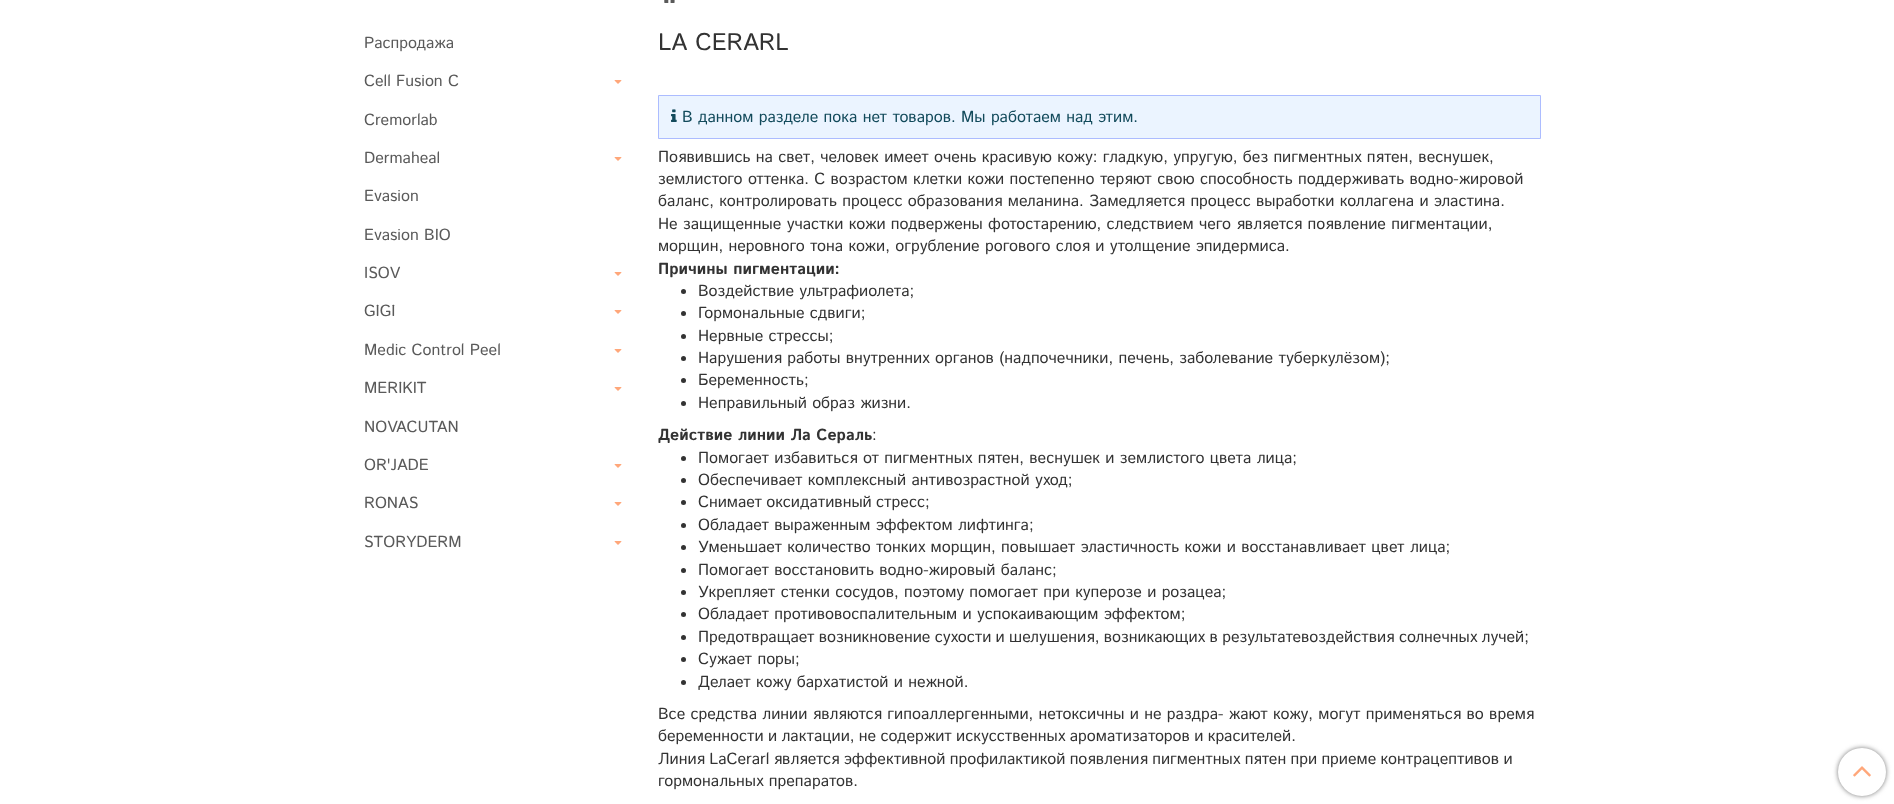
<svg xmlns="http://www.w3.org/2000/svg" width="1894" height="804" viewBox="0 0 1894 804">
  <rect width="100%" height="100%" fill="#fff"/>
  <image x="614" y="80" width="8" height="4" href="img/1.png"/>
  <image x="614" y="157" width="8" height="4" href="img/1.png"/>
  <image x="614" y="272" width="8" height="4" href="img/1.png"/>
  <image x="614" y="310" width="8" height="4" href="img/1.png"/>
  <image x="614" y="349" width="8" height="4" href="img/1.png"/>
  <image x="614" y="387" width="8" height="4" href="img/1.png"/>
  <image x="614" y="464" width="8" height="4" href="img/1.png"/>
  <image x="614" y="502" width="8" height="4" href="img/1.png"/>
  <image x="614" y="541" width="8" height="4" href="img/1.png"/>
  <image x="664" y="0" width="11" height="3" href="img/2.png"/>
  <path d="M658.5 95.5h882v43H658.5z" fill="#ebf4ff" stroke="#acbcff"/>
  <image x="671" y="109" width="6" height="13" href="img/3.png"/>
  <circle cx="683.5" cy="291.5" r="2.5" fill="#333"/>
  <circle cx="683.5" cy="313.5" r="2.5" fill="#333"/>
  <circle cx="683.5" cy="336.5" r="2.5" fill="#333"/>
  <circle cx="683.5" cy="358.5" r="2.5" fill="#333"/>
  <circle cx="683.5" cy="380.5" r="2.5" fill="#333"/>
  <circle cx="683.5" cy="403.5" r="2.5" fill="#333"/>
  <circle cx="683.5" cy="458.5" r="2.5" fill="#333"/>
  <circle cx="683.5" cy="480.5" r="2.5" fill="#333"/>
  <circle cx="683.5" cy="502.5" r="2.5" fill="#333"/>
  <circle cx="683.5" cy="525.5" r="2.5" fill="#333"/>
  <circle cx="683.5" cy="547.5" r="2.5" fill="#333"/>
  <circle cx="683.5" cy="570.5" r="2.5" fill="#333"/>
  <circle cx="683.5" cy="592.5" r="2.5" fill="#333"/>
  <circle cx="683.5" cy="614.5" r="2.5" fill="#333"/>
  <circle cx="683.5" cy="637.5" r="2.5" fill="#333"/>
  <circle cx="683.5" cy="659.5" r="2.5" fill="#333"/>
  <circle cx="683.5" cy="682.5" r="2.5" fill="#333"/>
  <rect x="1838" y="748" width="48" height="48" rx="24" fill="#777" filter="blur(2.5px)"/>
  <circle cx="1862" cy="772" r="24" fill="#fff"/>
  <image x="1853" y="766" width="18" height="11" href="img/4.png"/>
  <g font-family="Istok Web" font-size="16" fill="#5a5a5a">
    <text x="364" y="48">Распродажа</text>
    <text x="364" y="86">Cell Fusion C</text>
    <text x="364" y="125">Cremorlab</text>
    <text x="364" y="163">Dermaheal</text>
    <text x="364" y="201">Evasion</text>
    <text x="364" y="240">Evasion BIO</text>
    <text x="364" y="278">ISOV</text>
    <text x="364" y="316">GIGI</text>
    <text x="364" y="355">Medic Control Peel</text>
    <text x="364" y="393">MERIKIT</text>
    <text x="364" y="432">NOVACUTAN</text>
    <text x="364" y="470">OR'JADE</text>
    <text x="364" y="508">RONAS</text>
    <text x="364" y="547">STORYDERM</text>
  </g>
  <text x="658" y="50" font-family="Istok Web" font-size="24" fill="#333">LA CERARL</text>
  <text x="682" y="122" font-family="Istok Web" font-size="16" fill="#124a5b">В данном разделе пока нет товаров. Мы работаем над этим.</text>
  <g font-family="Istok Web" font-size="16" fill="#333">
    <text x="658" y="162">Появившись на свет, человек имеет очень красивую кожу: гладкую, упругую, без пигментных пятен, веснушек,</text>
    <text x="658" y="184">землистого оттенка. С возрастом клетки кожи постепенно теряют свою способность поддерживать водно-жировой</text>
    <text x="658" y="206">баланс, контролировать процесс образования меланина. Замедляется процесс выработки коллагена и эластина.</text>
    <text x="658" y="229">Не защищенные участки кожи подвержены фотостарению, следствием чего является появление пигментации,</text>
    <text x="658" y="251">морщин, неровного тона кожи, огрубление рогового слоя и утолщение эпидермиса.</text>
  </g>
  <text x="658" y="274" font-family="Istok Web" font-size="16" font-weight="bold" fill="#333">Причины пигментации:</text>
  <g font-family="Istok Web" font-size="16" fill="#333">
    <text x="698" y="296">Воздействие ультрафиолета;</text>
    <text x="698" y="318">Гормональные сдвиги;</text>
    <text x="698" y="341">Нервные стрессы;</text>
    <text x="698" y="363">Нарушения работы внутренних органов (надпочечники, печень, заболевание туберкулёзом);</text>
    <text x="698" y="385">Беременность;</text>
    <text x="698" y="408">Неправильный образ жизни.</text>
  </g>
  <text x="658" y="440" font-family="Istok Web" font-size="16" font-weight="bold" fill="#333">Действие линии Ла Сераль</text>
  <g font-family="Istok Web" font-size="16" fill="#333">
    <text x="872" y="440">:</text>
    <text x="698" y="463">Помогает избавиться от пигментных пятен, веснушек и землистого цвета лица;</text>
    <text x="698" y="485">Обеспечивает комплексный антивозрастной уход;</text>
    <text x="698" y="507" word-spacing="-1">Снимает оксидативный стресс;</text>
    <text x="698" y="530">Обладает выраженным эффектом лифтинга;</text>
    <text x="698" y="552">Уменьшает количество тонких морщин, повышает эластичность кожи и восстанавливает цвет лица;</text>
    <text x="698" y="575">Помогает восстановить водно-жировый баланс;</text>
    <text x="698" y="597">Укрепляет стенки сосудов, поэтому помогает при куперозе и розацеа;</text>
    <text x="698" y="619">Обладает противовоспалительным и успокаивающим эффектом;</text>
    <text x="698" y="642" word-spacing="-1">Предотвращает возникновение сухости и шелушения, возникающих в результатевоздействия солнечных лучей;</text>
    <text x="698" y="664">Сужает поры;</text>
    <text x="698" y="687">Делает кожу бархатистой и нежной.</text>
    <text x="658" y="719">Все средства линии являются гипоаллергенными, нетоксичны и не раздра- жают кожу, могут применяться во время</text>
    <text x="658" y="741" word-spacing="-1">беременности и лактации, не содержит искусственных ароматизаторов и красителей.</text>
    <text x="658" y="764" word-spacing="-1">Линия LaCerarl является эффективной профилактикой появления пигментных пятен при приеме контрацептивов и</text>
    <text x="658" y="786">гормональных препаратов.</text>
  </g>
</svg>
